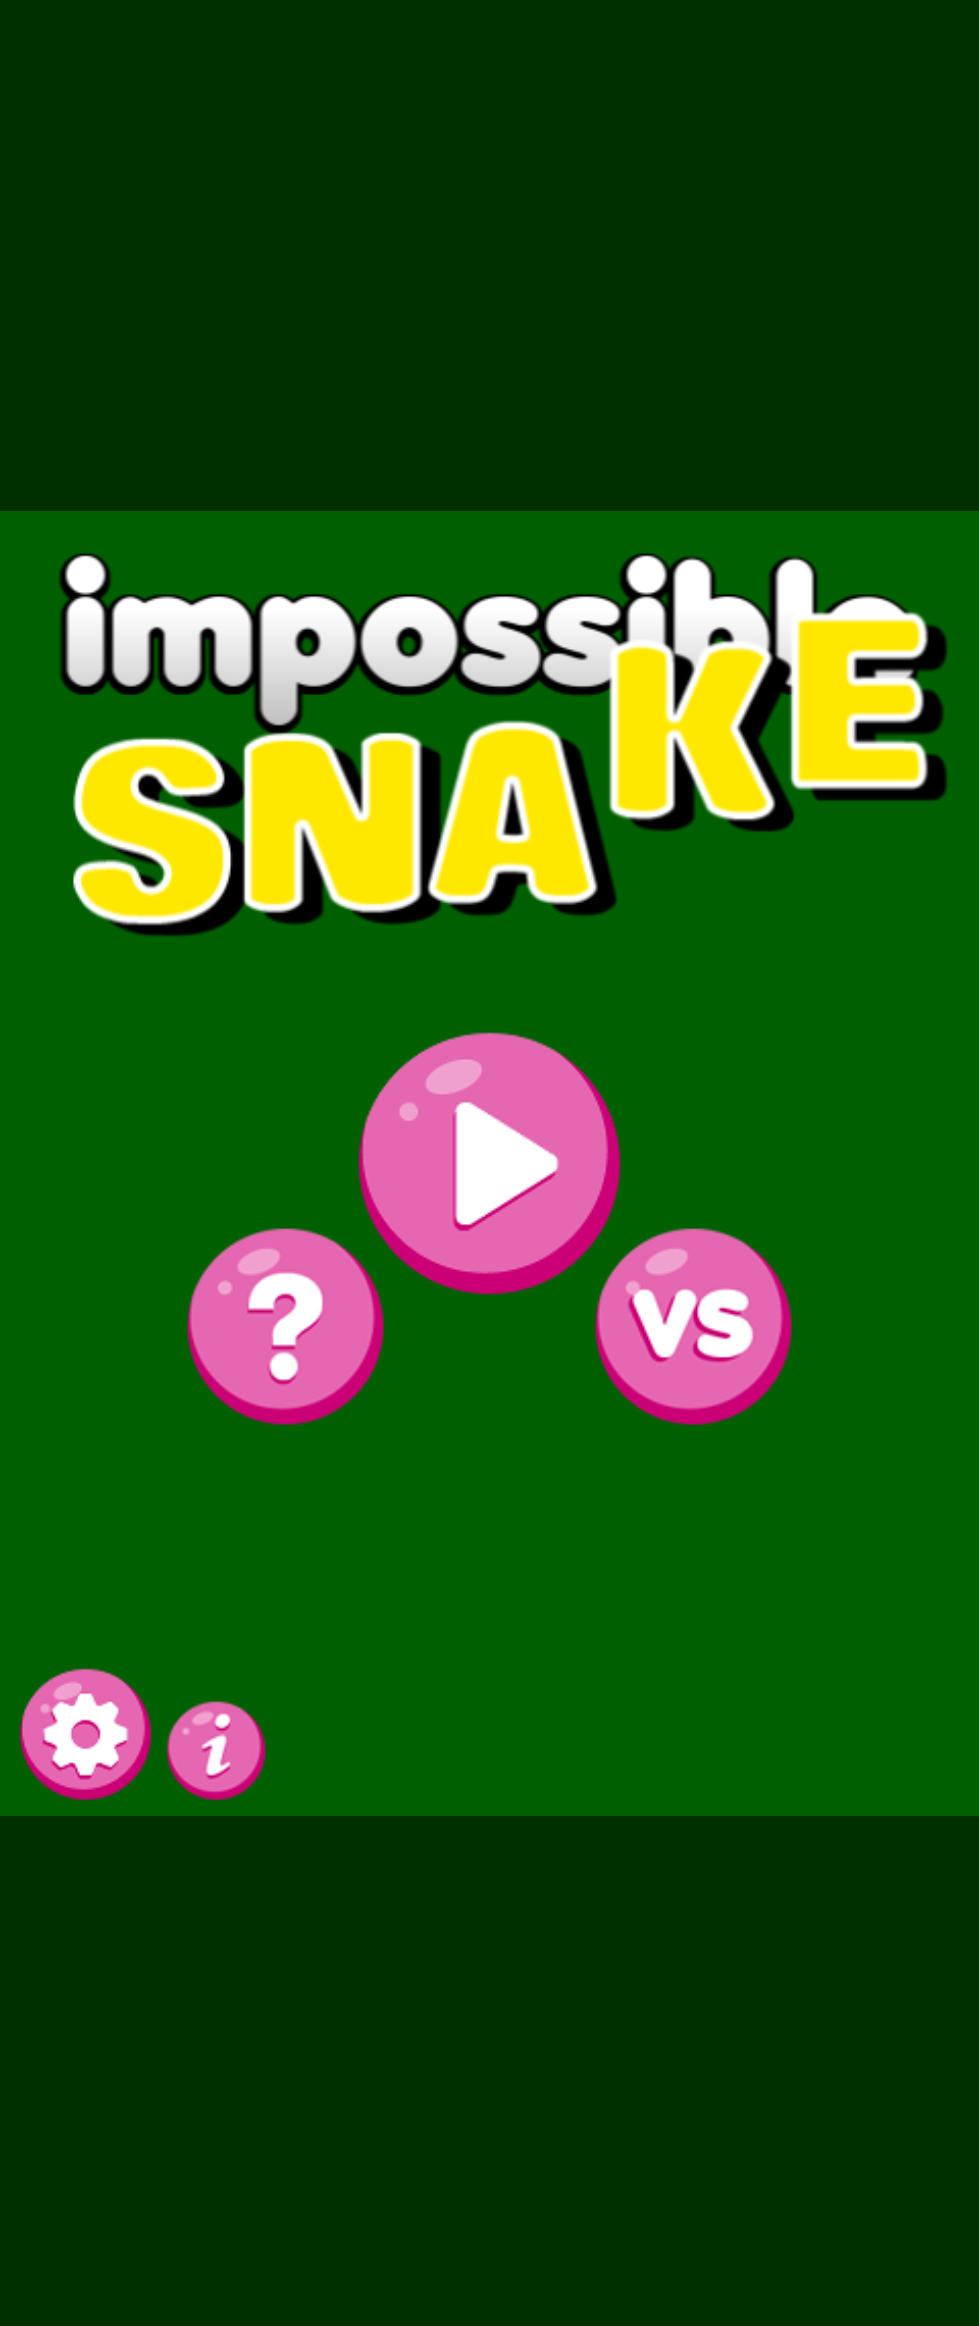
<svg xmlns="http://www.w3.org/2000/svg" width="979" height="2326" viewBox="0 0 979 2326">
  <rect width="100%" height="100%" fill="#003000"/>
  <image x="0" y="511" width="979" height="1305" href="img/1.png"/>
</svg>
